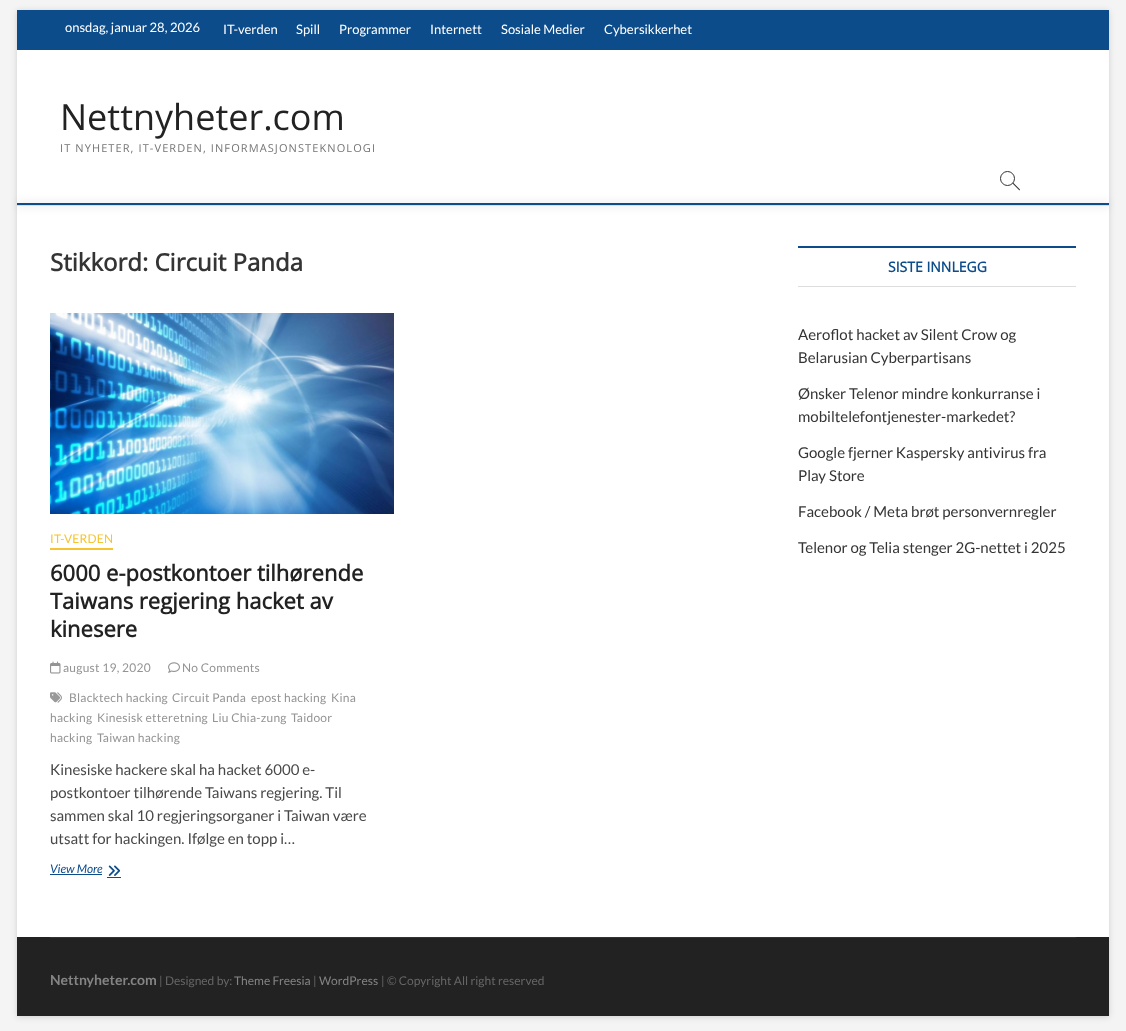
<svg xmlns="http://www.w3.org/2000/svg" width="1126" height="1031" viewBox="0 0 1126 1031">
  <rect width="100%" height="100%" fill="#f4f4f4"/>
  <path d="M17 11h1092v1006H17z" fill="#00000026" filter="blur(3px)"/>
  <path d="M17 50h1092v887H17z" fill="#fff"/>
  <path d="M17 10h1092v40H17z" fill="#0c4c8a"/>
  <path d="M17 203h1092v3H17z" fill="#00000026" filter="blur(4px)"/>
  <path d="M17 203h1092v2H17z" fill="#0c4c8a"/>
  <path d="M17 205h1092v1H17z" fill="#ddd"/>
  <circle cx="1007.5" cy="178.5" r="7" fill="none" stroke="#333"/>
  <path d="M1012.5 183.5L1013 182.5L1020 189.5L1019.5 190.5Z" fill="#333"/>
  <image x="50" y="313" width="344" height="201" href="img/1.png"/>
  <path d="M50 548h63v2H50z" fill="#f5c531"/>
  <image x="50" y="661" width="11" height="13" href="img/2.png"/>
  <image x="168" y="662" width="12" height="11" href="img/3.png"/>
  <image x="50" y="692" width="12" height="11" href="img/4.png"/>
  <path d="M50 874h52v1H50z" fill="#0c4c8a"/>
  <image x="108" y="865" width="13" height="11" href="img/5.png"/>
  <path d="M107 877h14v1H107z" fill="#0c4c8a"/>
  <path d="M798 246h278v2H798z" fill="#0c4c8a"/>
  <path d="M798 286h278v1H798z" fill="#ddd"/>
  <path d="M17 937h1092v79H17z" fill="#222"/>
  <path d="M50 937h1026v1H50z" fill="#333"/>
  <g font-family="Lato" font-size="13" fill="#fff">
    <text x="65" y="32">onsdag, januar 28, 2026</text>
    <text x="223" y="34">IT-verden</text>
    <text x="296" y="34">Spill</text>
    <text x="339" y="34">Programmer</text>
    <text x="430" y="34">Internett</text>
    <text x="501" y="34">Sosiale Medier</text>
    <text x="604" y="34">Cybersikkerhet</text>
  </g>
  <text x="60" y="130" font-family="Open Sans" font-size="36" fill="#222">Nettnyheter.com</text>
  <text x="60" y="152" font-family="Open Sans" font-size="11" letter-spacing="1.1" fill="#747474">IT NYHETER, IT-VERDEN, INFORMASJONSTEKNOLOGI</text>
  <text x="50" y="271" font-family="Open Sans" font-size="24" font-weight="bold" fill="#343434">Stikkord: Circuit Panda</text>
  <text x="50" y="543" font-family="Lato" font-size="12" letter-spacing="0.25" fill="#f5c531">IT-VERDEN</text>
  <g font-family="Open Sans" font-size="22" font-weight="bold" fill="#222">
    <text x="50" y="581">6000 e-postkontoer tilhørende</text>
    <text x="50" y="609">Taiwans regjering hacket av</text>
    <text x="50" y="637">kinesere</text>
  </g>
  <g font-family="Lato" font-size="12" letter-spacing="0.25" fill="#949494">
    <text x="63" y="672">august 19, 2020</text>
    <text x="182" y="672">No Comments</text>
    <text x="69" y="702">Blacktech hacking</text>
    <text x="172" y="702">Circuit Panda</text>
    <text x="251" y="702">epost hacking</text>
    <text x="331" y="702">Kina</text>
    <text x="50" y="722">hacking</text>
    <text x="97" y="722">Kinesisk etteretning</text>
    <text x="212" y="722">Liu Chia-zung</text>
    <text x="291" y="722">Taidoor</text>
    <text x="50" y="742">hacking</text>
    <text x="97" y="742">Taiwan hacking</text>
  </g>
  <g font-family="Lato" font-size="15" fill="#484848">
    <text x="50" y="775">Kinesiske hackere skal ha hacket 6000 e-</text>
    <text x="50" y="798">postkontoer tilhørende Taiwans regjering. Til</text>
    <text x="50" y="821">sammen skal 10 regjeringsorganer i Taiwan være</text>
    <text x="50" y="844">utsatt for hackingen. Ifølge en topp i…</text>
  </g>
  <text x="50" y="873" font-family="Lato" font-size="12" font-style="italic" fill="#0c4c8a">View More</text>
  <text x="888" y="272" font-family="Open Sans" font-size="14" font-weight="bold" fill="#0c4c8a">SISTE INNLEGG</text>
  <g font-family="Lato" font-size="15" fill="#343434">
    <text x="798" y="340">Aeroflot hacket av Silent Crow og</text>
    <text x="798" y="363">Belarusian Cyberpartisans</text>
    <text x="798" y="399">Ønsker Telenor mindre konkurranse i</text>
    <text x="798" y="422">mobiltelefontjenester-markedet?</text>
    <text x="798" y="458">Google fjerner Kaspersky antivirus fra</text>
    <text x="798" y="481">Play Store</text>
    <text x="798" y="517">Facebook / Meta brøt personvernregler</text>
    <text x="798" y="553">Telenor og Telia stenger 2G-nettet i 2025</text>
  </g>
  <text x="50" y="985" font-family="Lato" font-size="14" font-weight="bold" fill="#848484">Nettnyheter.com</text>
  <text x="159" y="985" font-family="Lato" font-size="12" fill="#666">| Designed by:</text>
  <text x="234" y="985" font-family="Lato" font-size="12" fill="#848484">Theme Freesia</text>
  <text x="313" y="985" font-family="Lato" font-size="12" fill="#666">|</text>
  <text x="319" y="985" font-family="Lato" font-size="12" fill="#848484">WordPress</text>
  <text x="381" y="985" font-family="Lato" font-size="12" fill="#666">| © Copyright All right reserved</text>
</svg>
